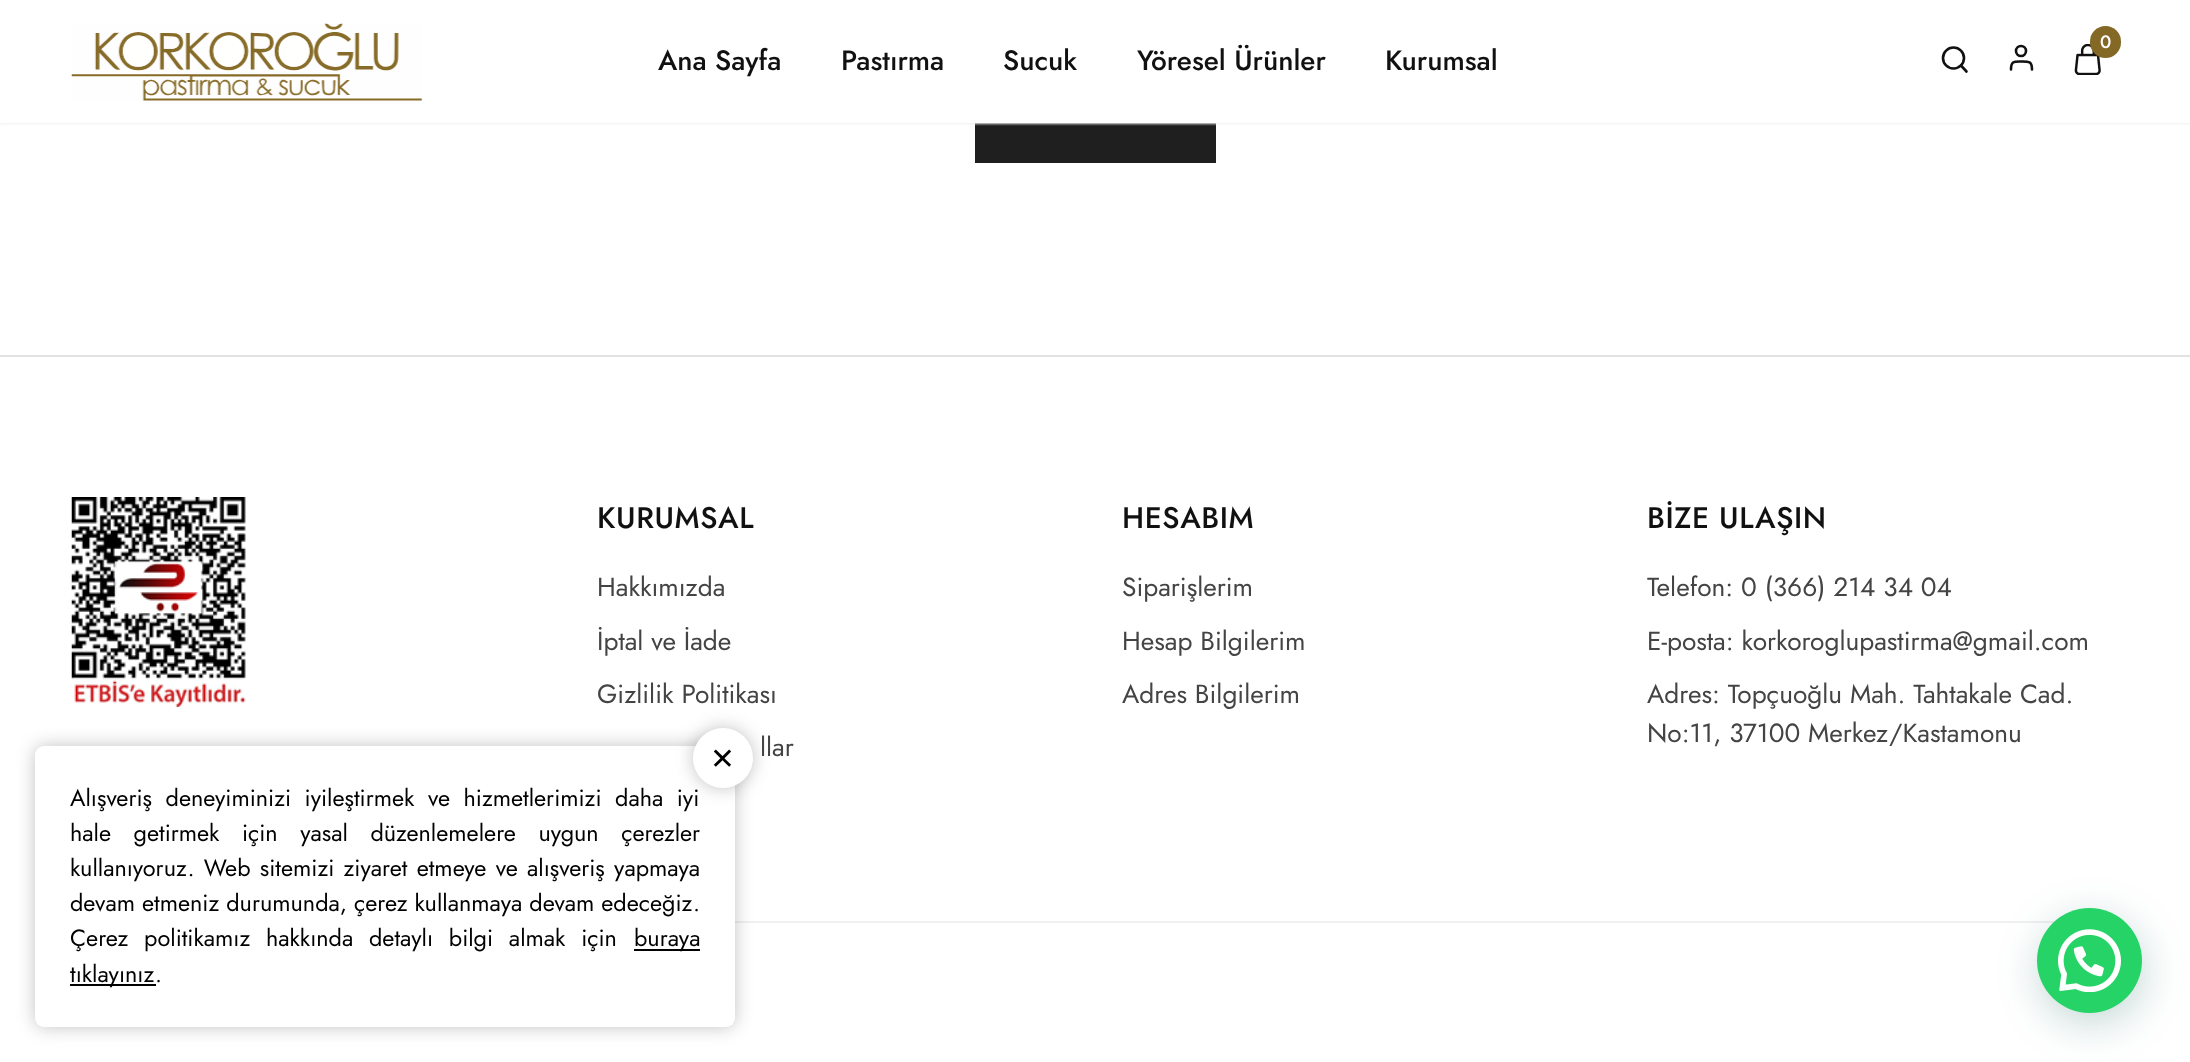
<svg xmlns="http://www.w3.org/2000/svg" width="2190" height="1062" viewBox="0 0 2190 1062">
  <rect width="100%" height="100%" fill="#fff"/>
  <path d="M975 123h241v40H975z" fill="#1f1f1f"/>
  <path d="M0 2h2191v122H0z" fill="#f0f0f0" filter="blur(1px)"/>
  <path d="M0 1h2190v122H0z" fill="#fff"/>
  <image x="71" y="23" width="351" height="78" href="img/1.png"/>
  <image x="2074" y="44" width="27" height="31" href="img/2.png"/>
  <rect x="2090" y="26" width="31" height="32" rx="15.5" fill="#846825"/>
  <circle cx="1953.5" cy="58" r="10.5" fill="none" stroke="#111" stroke-width="2.6"/>
  <path d="M1966.5 71.5L1961 65.5" fill="none" stroke="#111" stroke-width="2.6" stroke-linecap="round" stroke-linejoin="round"/>
  <path d="M2032 69.5C2032 61 2028.5 61.5 2021 61.5C2014 61.5 2011 61 2011 69.5" fill="none" stroke="#111" stroke-width="2.6" stroke-linecap="round" stroke-linejoin="round"/>
  <circle cx="2021" cy="51" r="5" fill="none" stroke="#111" stroke-width="2.6"/>
  <path d="M0 355h2190v2H0z" fill="#e2e2e2"/>
  <image x="71" y="497" width="175" height="210" href="img/3.png"/>
  <path d="M735 921h1320v2H735z" fill="#f0f0f0"/>
  <rect x="35" y="746" width="700" height="281" rx="9" fill="#0000003d" filter="blur(9px)"/>
  <rect x="35" y="746" width="700" height="281" rx="9" fill="#fff"/>
  <rect x="693" y="728" width="60" height="60" rx="30" fill="#0000003d" filter="blur(9px)"/>
  <path d="M634 949h66v2H634z" fill="#000"/>
  <path d="M70 984h86v2H70z" fill="#000"/>
  <rect x="2039" y="919" width="105" height="105" rx="52.5" fill="#075e543d" filter="blur(21px)"/>
  <circle cx="2089.5" cy="960.5" r="52.5" fill="#25d366"/>
  <image x="2058" y="929" width="63" height="63" href="img/4.png"/>
  <text x="2100" y="48" font-family="Jost" font-size="18" font-weight="500" fill="#fff">0</text>
  <g font-family="Jost" font-size="28" font-weight="500" fill="#111">
    <text x="658" y="70">Ana Sayfa</text>
    <text x="841" y="70">Pastırma</text>
    <text x="1003" y="70">Sucuk</text>
    <text x="1137" y="70">Yöresel Ürünler</text>
    <text x="1385" y="70">Kurumsal</text>
  </g>
  <text x="597" y="528" font-family="Jost" font-size="29.75" font-weight="500" letter-spacing="0.6" fill="#111">KURUMSAL</text>
  <g font-family="Jost" font-size="26.25" fill="#444">
    <text x="597" y="596">Hakkımızda</text>
    <text x="597" y="650">İptal ve İade</text>
    <text x="597" y="703">Gizlilik Politikası</text>
    <text x="760" y="756">llar</text>
  </g>
  <text x="1122" y="528" font-family="Jost" font-size="29.75" font-weight="500" letter-spacing="0.6" fill="#111">HESABIM</text>
  <g font-family="Jost" font-size="26.25" fill="#444">
    <text x="1122" y="596">Siparişlerim</text>
    <text x="1122" y="650">Hesap Bilgilerim</text>
    <text x="1122" y="703">Adres Bilgilerim</text>
  </g>
  <text x="1647" y="528" font-family="Jost" font-size="29.75" font-weight="500" letter-spacing="0.6" fill="#111">BİZE ULAŞIN</text>
  <g font-family="Jost" font-size="26.25" fill="#444">
    <text x="1647" y="596">Telefon: 0 (366) 214 34 04</text>
    <text x="1647" y="650">E-posta: korkoroglupastirma@gmail.com</text>
    <text x="1647" y="703">Adres: Topçuoğlu Mah. Tahtakale Cad.</text>
    <text x="1647" y="742">No:11, 37100 Merkez/Kastamonu</text>
  </g>
  <text x="70" y="806" word-spacing="6.5" font-family="Jost" font-size="23.45" fill="#000">Alışveriş deneyiminizi iyileştirmek ve hizmetlerimizi daha iyi</text>
  <circle cx="723" cy="758" r="30" fill="#fff"/>
  <text x="710" y="769" font-family="DejaVu Sans" font-size="29.75" fill="#000">✕</text>
  <g font-family="Jost" font-size="23.45" fill="#000">
    <text x="70" y="841" word-spacing="15.5">hale getirmek için yasal düzenlemelere uygun çerezler</text>
    <text x="70" y="876" word-spacing="2.25">kullanıyoruz. Web sitemizi ziyaret etmeye ve alışveriş yapmaya</text>
    <text x="70" y="911">devam etmeniz durumunda, çerez kullanmaya devam edeceğiz.</text>
    <text x="70" y="946" word-spacing="8.75">Çerez politikamız hakkında detaylı bilgi almak için</text>
    <text x="634" y="946">buraya</text>
    <text x="70" y="982">tıklayınız</text>
    <text x="155" y="982">.</text>
  </g>
</svg>
